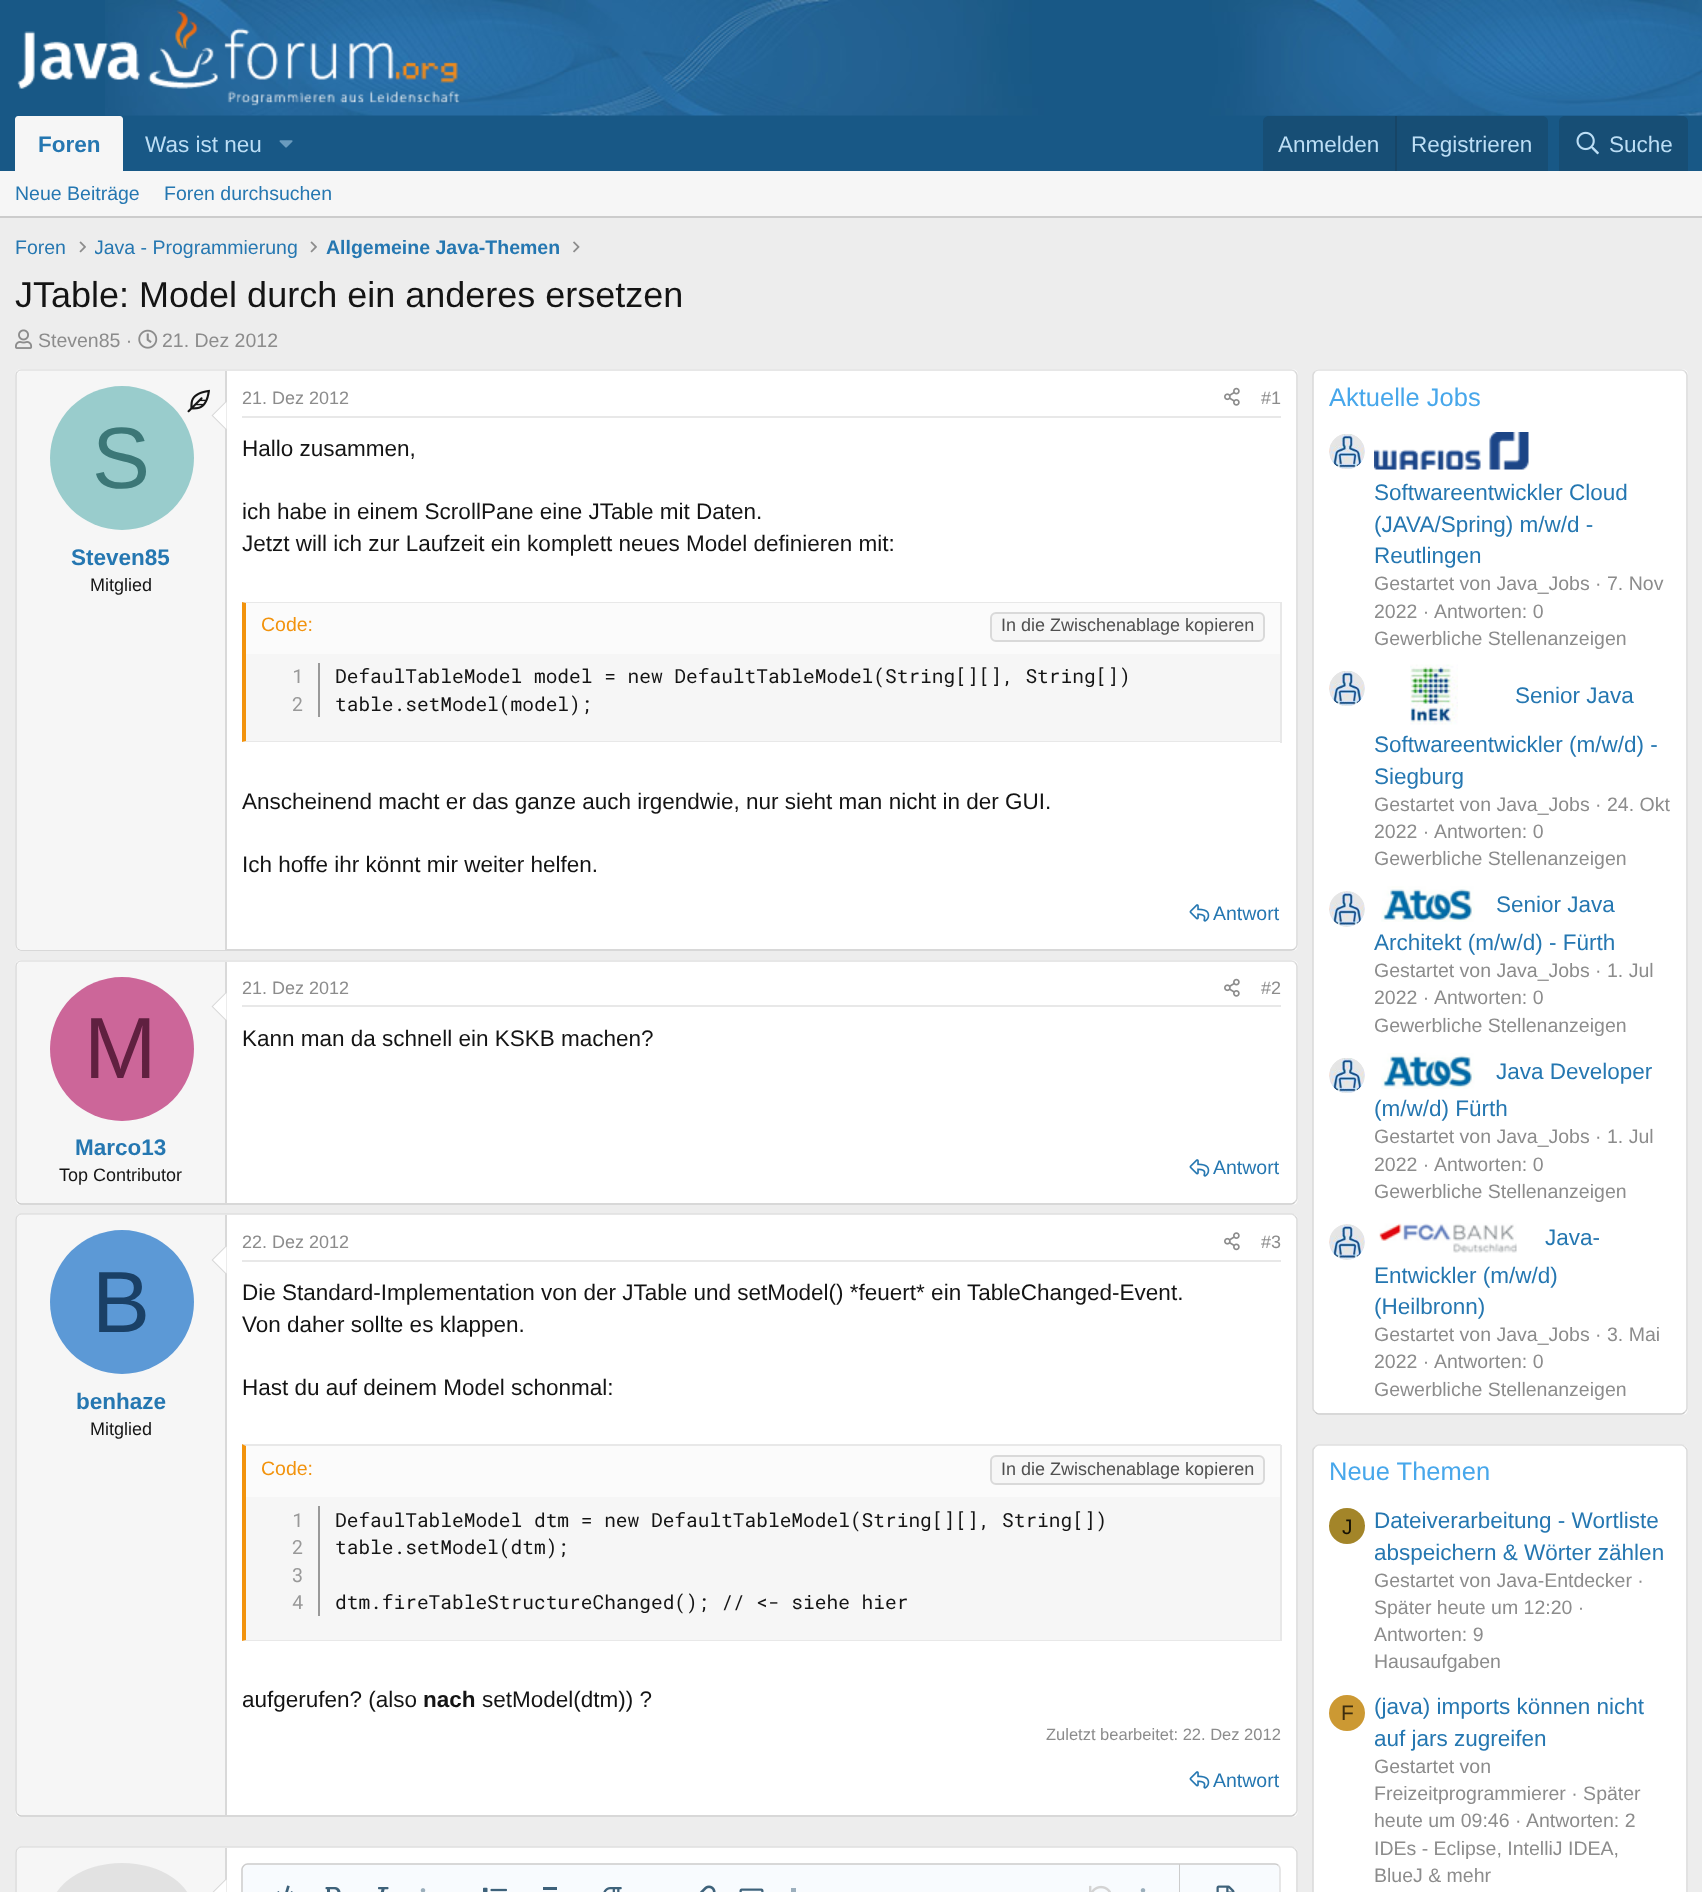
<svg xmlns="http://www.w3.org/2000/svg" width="1702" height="1892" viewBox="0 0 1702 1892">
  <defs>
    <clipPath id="clip1"><path d="M95 233h202v30H95z"/></clipPath>
  </defs>
  <rect width="100%" height="100%" fill="#ededed"/>
  <path d="M0 0h1702v116H0z" fill="#185886"/>
  <image x="105" y="0" width="1597" height="116" href="img/1.png"/>
  <image x="17" y="10" width="443" height="96" href="img/2.png"/>
  <path d="M0 116h1702v55H0z" fill="#185886"/>
  <path d="M18 116H120C121.5 116 123 117.5 123 119V171H15V119C15 117.5 16.5 116 18 116Z" fill="#f6f6f6"/>
  <image x="279" y="140" width="14" height="8" href="img/3.png"/>
  <path d="M1269 116H1542C1545.5 116 1548 118.5 1548 122V171H1263V122C1263 118.5 1265.5 116 1269 116Z" fill="#174e75"/>
  <path d="M1395 116h2v55H1395z" fill="#174566"/>
  <path d="M1565 116H1682C1685.5 116 1688 118.5 1688 122V171H1559V122C1559 118.5 1561.5 116 1565 116Z" fill="#174e75"/>
  <image x="1576" y="131" width="23" height="24" href="img/4.png"/>
  <path d="M0 171h1702v45H0z" fill="#f6f6f6"/>
  <path d="M0 216h1702v2H0z" fill="#ccc"/>
  <image x="79" y="241" width="7" height="12" href="img/5.png"/>
  <image x="310" y="241" width="7" height="12" href="img/5.png"/>
  <image x="573" y="241" width="7" height="12" href="img/6.png"/>
  <image x="15" y="329" width="18" height="20" href="img/7.png"/>
  <image x="138" y="329" width="20" height="20" href="img/8.png"/>
  <rect x="15" y="369" width="1283" height="582" rx="6" fill="#fff"/>
  <path d="M17.5 371.5C18.5 370.5 19.5 370 21 370H1291.5C1293 370 1294 370.5 1295 371.5" fill="none" stroke="#e0e0e0" stroke-width="1.5"/>
  <path d="M1295 371.5C1296 372.5 1297 373.5 1297 375V945C1297 946.5 1296 947.5 1295 948.5" fill="none" stroke="#d9d9d9" stroke-width="1.5"/>
  <path d="M1295 948.5C1294 949.5 1293 950 1291.5 950H21C19.5 950 18.5 949.5 17.5 948.5" fill="none" stroke="#ccc" stroke-width="1.5"/>
  <path d="M17.5 948.5C16.5 947.5 16 946.5 16 945V375C16 373.5 16.5 372.5 17.5 371.5" fill="none" stroke="#d9d9d9" stroke-width="1.5"/>
  <path d="M22 371H227V950H22C19 950 17 948 17 945V376C17 373 19 371 22 371Z" fill="#f6f6f6"/>
  <path d="M225 371h2v579H225z" fill="#d9d9d9"/>
  <path d="M226.5 400.5V430.5L211.5 415.5Z" fill="#d9d9d9"/>
  <path d="M226.5 402V429L213 415.5Z" fill="#fff"/>
  <circle cx="122" cy="458" r="72" fill="#9cc"/>
  <image x="187" y="389" width="23" height="24" href="img/9.png"/>
  <path d="M242 416h1039v2H242z" fill="#e8e8e8"/>
  <image x="1224" y="387" width="16" height="19" href="img/10.png"/>
  <path d="M246 654h1034v87H246z" fill="#f6f6f6"/>
  <path d="M242 602H1281L1280 603H246Z" fill="#e8e8e8"/>
  <path d="M1280 602h2v141H1280z" fill="#e8e8e8"/>
  <path d="M1281 742H242L246 741H1280Z" fill="#e8e8e8"/>
  <path d="M242 742V602L246 603V741Z" fill="#f2930d"/>
  <path d="M246 603h1034v51H246z" fill="#fbfbfb"/>
  <rect x="991" y="613" width="273" height="28" rx="5" fill="#f6f6f6" stroke="#d9d9d9" stroke-width="2"/>
  <path d="M318 663h2v54H318z" fill="#999"/>
  <image x="1189" y="904" width="21" height="18" href="img/11.png"/>
  <rect x="15" y="960" width="1283" height="245" rx="6" fill="#fff"/>
  <path d="M17.5 962.5C18.5 961.5 19.5 961 21 961H1291.5C1293 961 1294 961.5 1295 962.5" fill="none" stroke="#e0e0e0" stroke-width="1.5"/>
  <path d="M1295 962.5C1296 963.5 1297 964.5 1297 966V1198.5C1297 1200 1296 1201 1295 1202" fill="none" stroke="#d9d9d9" stroke-width="1.5"/>
  <path d="M1295 1202C1294 1203 1293 1204 1291.5 1204H21C19.5 1204 18.5 1203 17.5 1202" fill="none" stroke="#ccc" stroke-width="1.5"/>
  <path d="M17.5 1202C16.5 1201 16 1200 16 1198.5V966C16 964.5 16.5 963.5 17.5 962.5" fill="none" stroke="#d9d9d9" stroke-width="1.5"/>
  <path d="M22 962H227V1203H22C19 1203 17 1201 17 1198V967C17 964 19 962 22 962Z" fill="#f6f6f6"/>
  <path d="M225 962h2v241H225z" fill="#d9d9d9"/>
  <path d="M226.5 991.5V1021.5L211.5 1006.5Z" fill="#d9d9d9"/>
  <path d="M226.5 993V1020L213 1006.5Z" fill="#fff"/>
  <circle cx="122" cy="1049" r="72" fill="#c69"/>
  <path d="M242 1005h1039v2H242z" fill="#e8e8e8"/>
  <image x="1224" y="978" width="16" height="19" href="img/10.png"/>
  <image x="1189" y="1159" width="21" height="18" href="img/11.png"/>
  <rect x="15" y="1214" width="1283" height="603" rx="6" fill="#fff"/>
  <path d="M17.5 1216C18.5 1215 19.5 1214 21 1214H1291.5C1293 1214 1294 1215 1295 1216" fill="none" stroke="#e0e0e0" stroke-width="1.5"/>
  <path d="M1295 1216C1296 1217 1297 1218 1297 1219.5V1810.5C1297 1812 1296 1813 1295 1814" fill="none" stroke="#d9d9d9" stroke-width="1.5"/>
  <path d="M1295 1814C1294 1815 1293 1816 1291.5 1816H21C19.5 1816 18.5 1815 17.5 1814" fill="none" stroke="#ccc" stroke-width="1.5"/>
  <path d="M17.5 1814C16.5 1813 16 1812 16 1810.5V1219.5C16 1218 16.5 1217 17.5 1216" fill="none" stroke="#d9d9d9" stroke-width="1.5"/>
  <path d="M22 1215H227V1815H22C19 1815 17 1813 17 1810V1220C17 1217 19 1215 22 1215Z" fill="#f6f6f6"/>
  <path d="M225 1215h2v600H225z" fill="#d9d9d9"/>
  <path d="M226.5 1245V1275L211.5 1260Z" fill="#d9d9d9"/>
  <path d="M226.5 1246.5V1273.5L213 1260Z" fill="#fff"/>
  <circle cx="122" cy="1302" r="72" fill="#5c99d6"/>
  <path d="M242 1260h1039v2H242z" fill="#e8e8e8"/>
  <image x="1224" y="1232" width="16" height="19" href="img/12.png"/>
  <path d="M246 1497h1034v143H246z" fill="#f6f6f6"/>
  <path d="M242 1444H1281L1280 1446H246Z" fill="#e8e8e8"/>
  <path d="M1280 1445h2v196H1280z" fill="#e8e8e8"/>
  <path d="M1281 1641H242L246 1640H1280Z" fill="#e8e8e8"/>
  <path d="M242 1641V1444L246 1446V1640Z" fill="#f2930d"/>
  <path d="M246 1446h1034v51H246z" fill="#fbfbfb"/>
  <rect x="991" y="1456" width="273" height="28" rx="5" fill="#f6f6f6" stroke="#d9d9d9" stroke-width="2"/>
  <path d="M318 1506h2v110H318z" fill="#999"/>
  <image x="1189" y="1771" width="21" height="18" href="img/11.png"/>
  <rect x="15" y="1847" width="1283" height="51" rx="6" fill="#fff"/>
  <path d="M17.5 1849C18.5 1848 19.5 1847 21 1847H1291.5C1293 1847 1294 1848 1295 1849" fill="none" stroke="#e0e0e0" stroke-width="1.5"/>
  <path d="M1295 1849C1296 1850 1297 1851 1297 1852.5V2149.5C1297 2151 1296 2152 1295 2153" fill="none" stroke="#d9d9d9" stroke-width="1.5"/>
  <path d="M17.5 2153C16.5 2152 16 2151 16 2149.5V1852.5C16 1851 16.5 1850 17.5 1849" fill="none" stroke="#d9d9d9" stroke-width="1.5"/>
  <path d="M22 1848H227V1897H22C19 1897 17 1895 17 1892V1853C17 1850 19 1848 22 1848Z" fill="#f6f6f6"/>
  <path d="M225 1848h2v44H225z" fill="#d9d9d9"/>
  <rect x="50" y="1863" width="144" height="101" rx="72" fill="#e2e2e2"/>
  <path d="M226.5 1878V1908L211.5 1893Z" fill="#d9d9d9"/>
  <path d="M226.5 1879.5V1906.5L213 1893Z" fill="#fff"/>
  <rect x="243" y="1865" width="1037" height="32" rx="5" fill="#f8fbfe"/>
  <path d="M1278.5 1865.5C1279.5 1866.5 1280 1867.5 1280 1869V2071.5C1280 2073 1279.5 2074 1278.5 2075C1277.5 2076 1276.5 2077 1275 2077H247.5C246 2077 245 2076 244 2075" fill="none" stroke="#e0e0e0" stroke-width="1.5"/>
  <path d="M244 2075C243 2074 242 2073 242 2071.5V1869C242 1867.5 243 1866.5 244 1865.5C245 1864.5 246 1864 247.5 1864H1275C1276.5 1864 1277.5 1864.5 1278.5 1865.5" fill="none" stroke="#ccc" stroke-width="1.5"/>
  <image x="277" y="1885" width="16" height="7" href="img/13.png"/>
  <image x="325" y="1887" width="16" height="5" href="img/14.png"/>
  <image x="378" y="1887" width="11" height="5" href="img/15.png"/>
  <image x="420" y="1888" width="6" height="4" href="img/16.png"/>
  <image x="483" y="1887" width="24" height="5" href="img/17.png"/>
  <path d="M543 1887h14v3H543z" fill="#3e617a"/>
  <image x="603" y="1887" width="19" height="5" href="img/18.png"/>
  <image x="700" y="1885" width="16" height="7" href="img/19.png"/>
  <image x="739" y="1888" width="25" height="4" href="img/20.png"/>
  <path d="M791 1888h5v4H791z" fill="#9cafbd"/>
  <image x="1089" y="1885" width="22" height="7" href="img/21.png"/>
  <image x="1140" y="1888" width="6" height="4" href="img/16.png"/>
  <path d="M1179 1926L1181 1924H1180V1864H1179Z" fill="#ccc"/>
  <image x="1216" y="1885" width="19" height="7" href="img/22.png"/>
  <rect x="1313" y="369" width="375" height="1046" rx="6" fill="#fff"/>
  <path d="M1315 371.5C1316 370.5 1317 370 1318.5 370H1681.5C1683 370 1684 370.5 1685 371.5" fill="none" stroke="#e0e0e0" stroke-width="1.5"/>
  <path d="M1685 371.5C1686 372.5 1687 373.5 1687 375V1408.5C1687 1410 1686 1411 1685 1412" fill="none" stroke="#d9d9d9" stroke-width="1.5"/>
  <path d="M1685 1412C1684 1413 1683 1414 1681.5 1414H1318.5C1317 1414 1316 1413 1315 1412" fill="none" stroke="#ccc" stroke-width="1.5"/>
  <path d="M1315 1412C1314 1411 1313 1410 1313 1408.5V375C1313 373.5 1314 372.5 1315 371.5" fill="none" stroke="#d9d9d9" stroke-width="1.5"/>
  <image x="1329" y="434" width="36" height="35" href="img/23.png"/>
  <image x="1374" y="432" width="155" height="38" href="img/24.png"/>
  <image x="1329" y="671" width="36" height="35" href="img/23.png"/>
  <image x="1410" y="664" width="48" height="61" href="img/25.png"/>
  <image x="1329" y="891" width="36" height="36" href="img/26.png"/>
  <image x="1381" y="886" width="94" height="36" href="img/27.png"/>
  <image x="1329" y="1058" width="36" height="35" href="img/23.png"/>
  <image x="1381" y="1053" width="94" height="36" href="img/28.png"/>
  <image x="1329" y="1224" width="36" height="36" href="img/26.png"/>
  <image x="1379" y="1223" width="138" height="30" href="img/29.png"/>
  <rect x="1313" y="1445" width="375" height="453" rx="6" fill="#fff"/>
  <path d="M1315 1447C1316 1446 1317 1445 1318.5 1445H1681.5C1683 1445 1684 1446 1685 1447" fill="none" stroke="#e0e0e0" stroke-width="1.5"/>
  <path d="M1685 1447C1686 1448 1687 1449 1687 1450.5V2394C1687 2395.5 1686 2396.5 1685 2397.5" fill="none" stroke="#d9d9d9" stroke-width="1.5"/>
  <path d="M1315 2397.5C1314 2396.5 1313 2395.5 1313 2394V1450.5C1313 1449 1314 1448 1315 1447" fill="none" stroke="#d9d9d9" stroke-width="1.5"/>
  <circle cx="1347" cy="1526" r="18" fill="#a38529"/>
  <circle cx="1347" cy="1713" r="18" fill="#c93"/>
  <text x="38" y="152" font-family="Liberation Sans" font-size="22.5" font-weight="bold" fill="#2577b1">Foren</text>
  <g font-family="Liberation Sans" font-size="22.5" fill="#bcdef5">
    <text x="145" y="152">Was ist neu</text>
    <text x="1278" y="152">Anmelden</text>
    <text x="1411" y="152">Registrieren</text>
    <text x="1609" y="152">Suche</text>
  </g>
  <g font-family="Liberation Sans" font-size="19.5" fill="#2577b1">
    <text x="15" y="200">Neue Beiträge</text>
    <text x="164" y="200">Foren durchsuchen</text>
    <text x="15" y="254">Foren</text>
  </g>
  <g clip-path="url(#clip1)">
    <text x="94" y="254" font-family="Liberation Sans" font-size="19.5" fill="#2577b1">Java - Programmierung</text>
  </g>
  <text x="326" y="254" font-family="Liberation Sans" font-size="19.5" font-weight="bold" fill="#2577b1">Allgemeine Java-Themen</text>
  <text x="15" y="307" font-family="Liberation Sans" font-size="36" fill="#141414">JTable: Model durch ein anderes ersetzen</text>
  <g font-family="Liberation Sans" font-size="19.5" fill="#8c8c8c">
    <text x="38" y="347">Steven85 ·</text>
    <text x="162" y="347">21. Dez 2012</text>
  </g>
  <text x="92" y="488" font-family="Liberation Sans" font-size="87" fill="#3c7777">S</text>
  <text x="71" y="565" font-family="Liberation Sans" font-size="22.5" font-weight="bold" fill="#2577b1">Steven85</text>
  <text x="90" y="591" font-family="Liberation Sans" font-size="18" fill="#141414">Mitglied</text>
  <g font-family="Liberation Sans" font-size="18" fill="#8c8c8c">
    <text x="242" y="404">21. Dez 2012</text>
    <text x="1261" y="404">#1</text>
  </g>
  <g font-family="Liberation Sans" font-size="22.5" fill="#141414">
    <text x="242" y="456">Hallo zusammen,</text>
    <text x="242" y="519">ich habe in einem ScrollPane eine JTable mit Daten.</text>
    <text x="242" y="551">Jetzt will ich zur Laufzeit ein komplett neues Model definieren mit:</text>
  </g>
  <text x="261" y="631" font-family="Liberation Sans" font-size="19.5" fill="#f2930d">Code:</text>
  <text x="1001" y="631" font-family="Liberation Sans" font-size="18" fill="#505050">In die Zwischenablage kopieren</text>
  <g font-family="Roboto Mono" font-size="19.5" letter-spacing="-2" fill="#999">
    <text x="292" y="683">1</text>
    <text x="292" y="711">2</text>
  </g>
  <g font-family="Roboto Mono" font-size="19.5" fill="#141414">
    <text x="335" y="683">DefaulTableModel model = new DefaultTableModel(String[][], String[])</text>
    <text x="335" y="711">table.setModel(model);</text>
  </g>
  <g font-family="Liberation Sans" font-size="22.5" fill="#141414">
    <text x="242" y="809">Anscheinend macht er das ganze auch irgendwie, nur sieht man nicht in der GUI.</text>
    <text x="242" y="872">Ich hoffe ihr könnt mir weiter helfen.</text>
  </g>
  <text x="1213" y="920" font-family="Liberation Sans" font-size="19.5" fill="#2577b1">Antwort</text>
  <text x="84" y="1078" font-family="Liberation Sans" font-size="87" fill="#602040">M</text>
  <text x="75" y="1155" font-family="Liberation Sans" font-size="22.5" font-weight="bold" fill="#2577b1">Marco13</text>
  <text x="59" y="1181" font-family="Liberation Sans" font-size="18" fill="#141414">Top Contributor</text>
  <g font-family="Liberation Sans" font-size="18" fill="#8c8c8c">
    <text x="242" y="994">21. Dez 2012</text>
    <text x="1261" y="994">#2</text>
  </g>
  <text x="242" y="1046" font-family="Liberation Sans" font-size="22.5" fill="#141414">Kann man da schnell ein KSKB machen?</text>
  <text x="1213" y="1174" font-family="Liberation Sans" font-size="19.5" fill="#2577b1">Antwort</text>
  <text x="92" y="1332" font-family="Liberation Sans" font-size="87" fill="#1a4066">B</text>
  <text x="76" y="1409" font-family="Liberation Sans" font-size="22.5" font-weight="bold" fill="#2577b1">benhaze</text>
  <text x="90" y="1435" font-family="Liberation Sans" font-size="18" fill="#141414">Mitglied</text>
  <g font-family="Liberation Sans" font-size="18" fill="#8c8c8c">
    <text x="242" y="1248">22. Dez 2012</text>
    <text x="1261" y="1248">#3</text>
  </g>
  <g font-family="Liberation Sans" font-size="22.5" fill="#141414">
    <text x="242" y="1300">Die Standard-Implementation von der JTable und setModel() *feuert* ein TableChanged-Event.</text>
    <text x="242" y="1332">Von daher sollte es klappen.</text>
    <text x="242" y="1395">Hast du auf deinem Model schonmal:</text>
  </g>
  <text x="261" y="1475" font-family="Liberation Sans" font-size="19.5" fill="#f2930d">Code:</text>
  <text x="1001" y="1475" font-family="Liberation Sans" font-size="18" fill="#505050">In die Zwischenablage kopieren</text>
  <g font-family="Roboto Mono" font-size="19.5" letter-spacing="-2" fill="#999">
    <text x="292" y="1527">1</text>
    <text x="292" y="1554">2</text>
    <text x="292" y="1582">3</text>
    <text x="292" y="1609">4</text>
  </g>
  <g font-family="Roboto Mono" font-size="19.5" fill="#141414">
    <text x="335" y="1527">DefaulTableModel dtm = new DefaultTableModel(String[][], String[])</text>
    <text x="335" y="1554">table.setModel(dtm);</text>
    <text x="335" y="1609">dtm.fireTableStructureChanged(); // &lt;- siehe hier</text>
  </g>
  <text x="242" y="1707" font-family="Liberation Sans" font-size="22.5" fill="#141414">aufgerufen? (also</text>
  <text x="423" y="1707" font-family="Liberation Sans" font-size="22.5" font-weight="bold" fill="#141414">nach</text>
  <text x="482" y="1707" font-family="Liberation Sans" font-size="22.5" fill="#141414">setModel(dtm)) ?</text>
  <text x="1046" y="1740" font-family="Liberation Sans" font-size="16.5" fill="#8c8c8c">Zuletzt bearbeitet: 22. Dez 2012</text>
  <text x="1213" y="1787" font-family="Liberation Sans" font-size="19.5" fill="#2577b1">Antwort</text>
  <text x="1329" y="406" font-family="Liberation Sans" font-size="25.5" fill="#47a7eb">Aktuelle Jobs</text>
  <g font-family="Liberation Sans" font-size="22.5" fill="#2577b1">
    <text x="1374" y="500">Softwareentwickler Cloud</text>
    <text x="1374" y="532">(JAVA/Spring) m/w/d -</text>
    <text x="1374" y="563">Reutlingen</text>
  </g>
  <g font-family="Liberation Sans" font-size="19.5" fill="#8c8c8c">
    <text x="1374" y="590">Gestartet von Java_Jobs · 7. Nov</text>
    <text x="1374" y="618">2022 ·</text>
    <text x="1434" y="618">Antworten: 0</text>
    <text x="1374" y="645">Gewerbliche Stellenanzeigen</text>
  </g>
  <g font-family="Liberation Sans" font-size="22.5" fill="#2577b1">
    <text x="1515" y="703">Senior Java</text>
    <text x="1374" y="752">Softwareentwickler (m/w/d) -</text>
    <text x="1374" y="784">Siegburg</text>
  </g>
  <g font-family="Liberation Sans" font-size="19.5" fill="#8c8c8c">
    <text x="1374" y="811">Gestartet von Java_Jobs · 24. Okt</text>
    <text x="1374" y="838">2022 ·</text>
    <text x="1434" y="838">Antworten: 0</text>
    <text x="1374" y="865">Gewerbliche Stellenanzeigen</text>
  </g>
  <g font-family="Liberation Sans" font-size="22.5" fill="#2577b1">
    <text x="1496" y="912">Senior Java</text>
    <text x="1374" y="950">Architekt (m/w/d) - Fürth</text>
  </g>
  <g font-family="Liberation Sans" font-size="19.5" fill="#8c8c8c">
    <text x="1374" y="977">Gestartet von Java_Jobs · 1. Jul</text>
    <text x="1374" y="1004">2022 ·</text>
    <text x="1434" y="1004">Antworten: 0</text>
    <text x="1374" y="1032">Gewerbliche Stellenanzeigen</text>
  </g>
  <g font-family="Liberation Sans" font-size="22.5" fill="#2577b1">
    <text x="1496" y="1079">Java Developer</text>
    <text x="1374" y="1116">(m/w/d) Fürth</text>
  </g>
  <g font-family="Liberation Sans" font-size="19.5" fill="#8c8c8c">
    <text x="1374" y="1143">Gestartet von Java_Jobs · 1. Jul</text>
    <text x="1374" y="1171">2022 ·</text>
    <text x="1434" y="1171">Antworten: 0</text>
    <text x="1374" y="1198">Gewerbliche Stellenanzeigen</text>
  </g>
  <g font-family="Liberation Sans" font-size="22.5" fill="#2577b1">
    <text x="1545" y="1245">Java-</text>
    <text x="1374" y="1283">Entwickler (m/w/d)</text>
    <text x="1374" y="1314">(Heilbronn)</text>
  </g>
  <g font-family="Liberation Sans" font-size="19.5" fill="#8c8c8c">
    <text x="1374" y="1341">Gestartet von Java_Jobs · 3. Mai</text>
    <text x="1374" y="1368">2022 ·</text>
    <text x="1434" y="1368">Antworten: 0</text>
    <text x="1374" y="1396">Gewerbliche Stellenanzeigen</text>
  </g>
  <text x="1329" y="1480" font-family="Liberation Sans" font-size="25.5" fill="#47a7eb">Neue Themen</text>
  <text x="1342" y="1534" font-family="Liberation Sans" font-size="21" fill="#141105">J</text>
  <g font-family="Liberation Sans" font-size="22.5" fill="#2577b1">
    <text x="1374" y="1528">Dateiverarbeitung - Wortliste</text>
    <text x="1374" y="1560">abspeichern &amp; Wörter zählen</text>
  </g>
  <g font-family="Liberation Sans" font-size="19.5" fill="#8c8c8c">
    <text x="1374" y="1587">Gestartet von Java-Entdecker ·</text>
    <text x="1374" y="1614">Später heute um 12:20 ·</text>
    <text x="1374" y="1641">Antworten: 9</text>
    <text x="1374" y="1668">Hausaufgaben</text>
  </g>
  <text x="1341" y="1720" font-family="Liberation Sans" font-size="21" fill="#3d2e0f">F</text>
  <g font-family="Liberation Sans" font-size="22.5" fill="#2577b1">
    <text x="1374" y="1714">(java) imports können nicht</text>
    <text x="1374" y="1746">auf jars zugreifen</text>
  </g>
  <g font-family="Liberation Sans" font-size="19.5" fill="#8c8c8c">
    <text x="1374" y="1773">Gestartet von</text>
    <text x="1374" y="1800">Freizeitprogrammierer · Später</text>
    <text x="1374" y="1827">heute um 09:46 ·</text>
    <text x="1526" y="1827">Antworten: 2</text>
    <text x="1374" y="1855">IDEs - Eclipse, IntelliJ IDEA,</text>
    <text x="1374" y="1882">BlueJ &amp; mehr</text>
  </g>
</svg>
